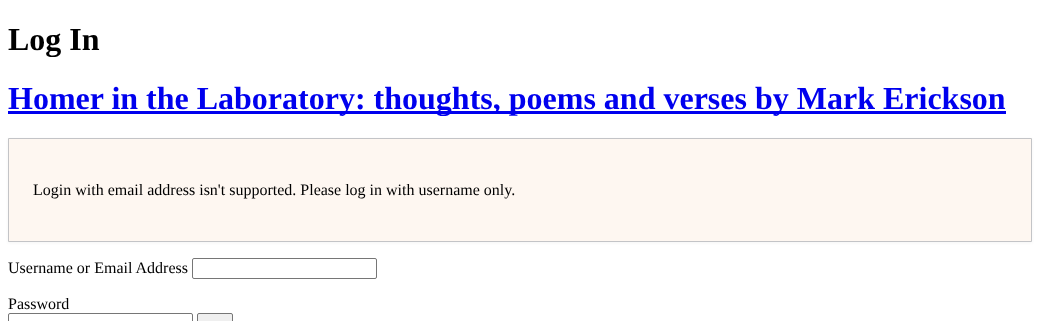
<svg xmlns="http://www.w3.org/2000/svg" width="1040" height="321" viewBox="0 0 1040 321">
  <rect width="100%" height="100%" fill="#fff"/>
  <path d="M8 111h998v3H8z" fill="#00e"/>
  <path d="M8 139h1024v104H8z" fill="#0000000a" filter="blur(1.5px)"/>
  <path d="M8.5 138.5h1023v103H8.5z" fill="#fef7f1" stroke="#c3c4c7"/>
  <rect x="192.5" y="258.5" width="184" height="20" rx="1.5" fill="none" stroke="#767676"/>
  <rect x="8.5" y="313.5" width="184" height="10" rx="1.5" fill="none" stroke="#767676"/>
  <rect x="197.5" y="313.5" width="35" height="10" rx="1.5" fill="#efefef" stroke="#767676"/>
  <text x="8" y="50" font-family="Liberation Serif" font-size="32" font-weight="bold" fill="#000">Log In</text>
  <text x="8" y="109" font-family="Liberation Serif" font-size="32" font-weight="bold" fill="#00e">Homer in the Laboratory: thoughts, poems and verses by Mark Erickson</text>
  <g font-family="Liberation Serif" font-size="16" fill="#000">
    <text x="33" y="195">Login with email address isn't supported. Please log in with username only.</text>
    <text x="8" y="273">Username or Email Address</text>
    <text x="8" y="309">Password</text>
  </g>
</svg>
